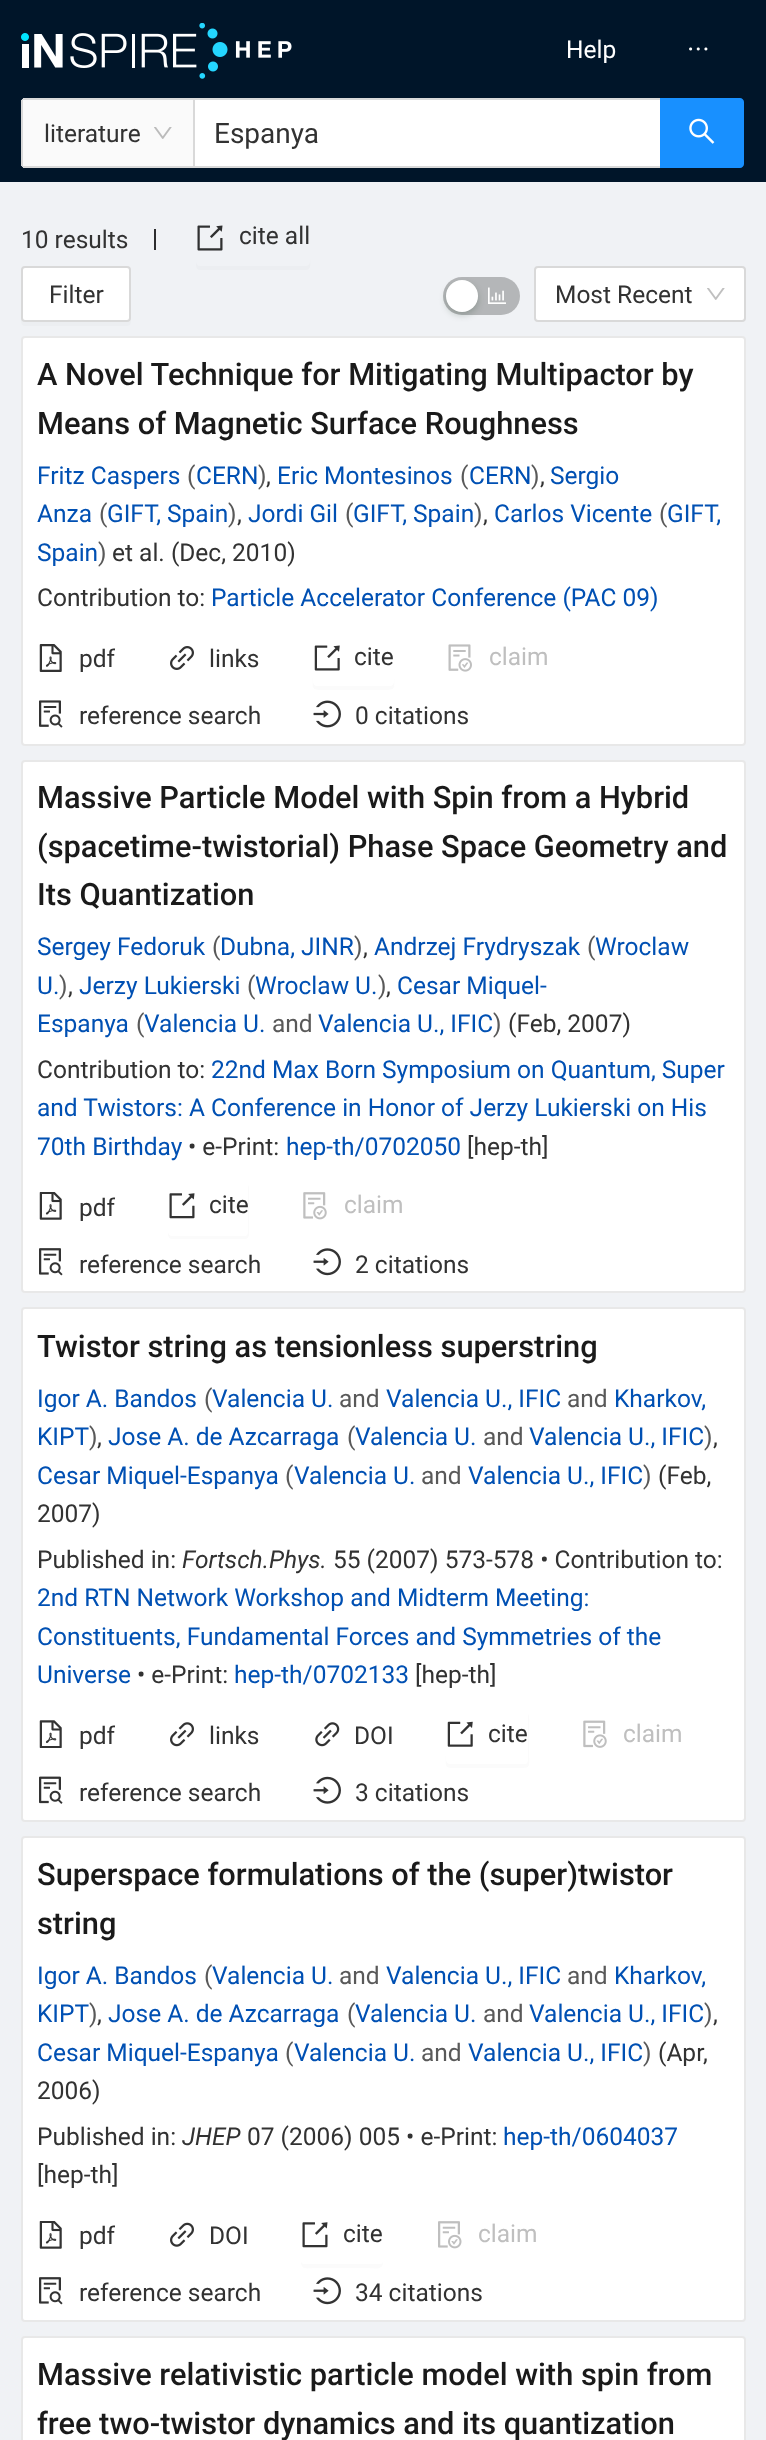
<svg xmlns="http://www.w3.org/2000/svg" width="766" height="2440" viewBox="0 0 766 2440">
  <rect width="100%" height="100%" fill="#f0f2f5"/>
  <path d="M0 0h766v182H0z" fill="#001529"/>
  <image x="21" y="23" width="271" height="56" href="img/1.png"/>
  <image x="689" y="47" width="19" height="4" href="img/2.png"/>
  <path d="M25 98H193V168H25C23 168 21 166 21 164V102C21 100 23 98 25 98Z" fill="#fafafa"/>
  <path d="M23 98h170v2H23z" fill="#d9d9d9"/>
  <path d="M23 166h170v2H23z" fill="#d9d9d9"/>
  <path d="M21 100h2v66H21z" fill="#d9d9d9"/>
  <image x="154" y="127" width="18" height="12" href="img/3.png"/>
  <path d="M194 99h467v68H194z" fill="#fff" stroke="#d9d9d9" stroke-width="2"/>
  <path d="M661 99H740C741.5 99 743 100.5 743 102V164C743 165.5 741.5 167 740 167H661Z" fill="#1890ff" stroke="#1890ff" stroke-width="2"/>
  <image x="689" y="118" width="26" height="26" href="img/4.png"/>
  <path d="M154 229h2v21H154z" fill="#2d2d2e"/>
  <path d="M196 262C196 266 196 270 200 270H306C312 270 310 261 310 258V217V262C310 264 308 266 306 266H200C198 266 196 264 196 262Z" fill="#eceef1"/>
  <image x="197" y="225" width="26" height="26" href="img/5.png"/>
  <path d="M21 318V322C21 324 23 326 25 326H127C129 326 131 324 131 322V320C130 321 129 322 128 322H24C23 322 21 320 21 318Z" fill="#eceef1"/>
  <rect x="22" y="267" width="108" height="54" rx="3" fill="#fff" stroke="#d9d9d9" stroke-width="2"/>
  <rect x="443" y="277" width="77" height="38" rx="19" fill="#b4b6b8"/>
  <image x="488" y="287" width="18" height="17" href="img/6.png"/>
  <rect x="446" y="284" width="32" height="31" rx="15.5" fill="#00230b33" filter="blur(3.5px)"/>
  <circle cx="462" cy="296" r="16" fill="#fff"/>
  <rect x="535" y="267" width="210" height="54" rx="3" fill="#fff" stroke="#d9d9d9" stroke-width="2"/>
  <image x="707" y="288" width="18" height="12" href="img/7.png"/>
  <rect x="22" y="337" width="723" height="408" rx="3" fill="#fff" stroke="#e8e8e8" stroke-width="2"/>
  <image x="39" y="644" width="23" height="28" href="img/8.png"/>
  <image x="170" y="646" width="24" height="24" href="img/9.png"/>
  <path d="M313 637V670C313 691 309 690 329 690H378C398 690 394 691 394 670V637V682C394 684 392 686 390 686H317C315 686 313 684 313 682Z" fill="#fbfbfb"/>
  <image x="314" y="645" width="26" height="26" href="img/10.png"/>
  <image x="448" y="644" width="24" height="28" href="img/11.png"/>
  <image x="39" y="700" width="24" height="28" href="img/12.png"/>
  <image x="313" y="700" width="28" height="28" href="img/13.png"/>
  <rect x="22" y="761" width="723" height="531" rx="3" fill="#fff" stroke="#e8e8e8" stroke-width="2"/>
  <image x="39" y="1192" width="23" height="28" href="img/14.png"/>
  <path d="M168 1232V1235C168 1237 170 1239 172 1239H245C247 1239 249 1237 249 1235V1187L248 1185V1232C248 1234 247 1236 245 1236H172C170 1236 168 1234 168 1232Z" fill="#fbfbfb"/>
  <image x="169" y="1193" width="26" height="26" href="img/15.png"/>
  <image x="303" y="1192" width="24" height="28" href="img/16.png"/>
  <image x="39" y="1248" width="24" height="28" href="img/17.png"/>
  <image x="313" y="1248" width="28" height="28" href="img/18.png"/>
  <rect x="22" y="1308" width="723" height="513" rx="3" fill="#fff" stroke="#e8e8e8" stroke-width="2"/>
  <image x="39" y="1720" width="23" height="28" href="img/19.png"/>
  <image x="170" y="1722" width="24" height="25" href="img/20.png"/>
  <image x="315" y="1722" width="25" height="25" href="img/21.png"/>
  <path d="M446 1715V1748C446 1770 442 1768 462 1768H512C533 1768 529 1770 529 1748V1724C529 1724 530 1717 528 1714V1760C528 1762 527 1764 525 1764H450C448 1764 446 1762 446 1760Z" fill="#fbfbfb"/>
  <image x="447" y="1721" width="26" height="26" href="img/22.png"/>
  <image x="583" y="1720" width="24" height="28" href="img/23.png"/>
  <image x="39" y="1776" width="24" height="28" href="img/24.png"/>
  <image x="313" y="1776" width="28" height="28" href="img/25.png"/>
  <rect x="22" y="1837" width="723" height="484" rx="3" fill="#fff" stroke="#e8e8e8" stroke-width="2"/>
  <image x="39" y="2221" width="23" height="28" href="img/14.png"/>
  <image x="170" y="2222" width="24" height="25" href="img/26.png"/>
  <path d="M301 2261C301 2271 307 2268 317 2268H367C374 2268 383 2271 383 2262C382 2264 381 2264 380 2264H304C303 2264 301 2263 301 2261Z" fill="#fbfbfb"/>
  <image x="302" y="2222" width="26" height="26" href="img/15.png"/>
  <image x="438" y="2221" width="24" height="28" href="img/27.png"/>
  <image x="39" y="2277" width="24" height="28" href="img/17.png"/>
  <image x="313" y="2277" width="28" height="28" href="img/18.png"/>
  <rect x="22" y="2337" width="723" height="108" rx="3" fill="#fff" stroke="#e8e8e8" stroke-width="2"/>
  <text x="566" y="58" font-family="Roboto" font-size="24.5" fill="#fff">Help</text>
  <text x="44" y="142" font-family="Roboto" font-size="24.5" fill="#323232">literature</text>
  <text x="214" y="143" font-family="Roboto" font-size="28" fill="#323232">Espanya</text>
  <g font-family="Roboto" font-size="24.5" fill="#323232">
    <text x="21" y="248">10 results</text>
    <text x="239" y="244">cite all</text>
    <text x="49" y="303">Filter</text>
    <text x="555" y="303">Most Recent</text>
  </g>
  <g font-family="Roboto" font-size="30.8" font-weight="500" fill="#1a1a1a">
    <text x="37" y="385">A Novel Technique for Mitigating Multipactor by</text>
    <text x="37" y="434">Means of Magnetic Surface Roughness</text>
  </g>
  <text x="37" y="484" font-family="Roboto" font-size="24.5" fill="#0050b3">Fritz Caspers</text>
  <text x="187" y="484" font-family="Roboto" font-size="24.5" fill="#595959">(</text>
  <text x="196" y="484" font-family="Roboto" font-size="24.5" fill="#0050b3">CERN</text>
  <text x="258" y="484" font-family="Roboto" font-size="24.5" fill="#595959">)</text>
  <text x="266" y="484" font-family="Roboto" font-size="24.5" fill="#323232">,</text>
  <text x="277" y="484" font-family="Roboto" font-size="24.5" fill="#0050b3">Eric Montesinos</text>
  <text x="460" y="484" font-family="Roboto" font-size="24.5" fill="#595959">(</text>
  <text x="469" y="484" font-family="Roboto" font-size="24.5" fill="#0050b3">CERN</text>
  <text x="531" y="484" font-family="Roboto" font-size="24.5" fill="#595959">)</text>
  <text x="540" y="484" font-family="Roboto" font-size="24.5" fill="#323232">,</text>
  <g font-family="Roboto" font-size="24.5" fill="#0050b3">
    <text x="550" y="484">Sergio</text>
    <text x="37" y="522">Anza</text>
  </g>
  <text x="99" y="522" font-family="Roboto" font-size="24.5" fill="#595959">(</text>
  <text x="107" y="522" font-family="Roboto" font-size="24.5" fill="#0050b3">GIFT, Spain</text>
  <text x="228" y="522" font-family="Roboto" font-size="24.5" fill="#595959">)</text>
  <text x="237" y="522" font-family="Roboto" font-size="24.5" fill="#323232">,</text>
  <text x="248" y="522" font-family="Roboto" font-size="24.5" fill="#0050b3">Jordi Gil</text>
  <text x="345" y="522" font-family="Roboto" font-size="24.5" fill="#595959">(</text>
  <text x="353" y="522" font-family="Roboto" font-size="24.5" fill="#0050b3">GIFT, Spain</text>
  <text x="474" y="522" font-family="Roboto" font-size="24.5" fill="#595959">)</text>
  <text x="483" y="522" font-family="Roboto" font-size="24.5" fill="#323232">,</text>
  <text x="494" y="522" font-family="Roboto" font-size="24.5" fill="#0050b3">Carlos Vicente</text>
  <text x="659" y="522" font-family="Roboto" font-size="24.5" fill="#595959">(</text>
  <g font-family="Roboto" font-size="24.5" fill="#0050b3">
    <text x="667" y="522">GIFT,</text>
    <text x="37" y="561">Spain</text>
  </g>
  <text x="98" y="561" font-family="Roboto" font-size="24.5" fill="#595959">)</text>
  <g font-family="Roboto" font-size="24.5" fill="#323232">
    <text x="112" y="561">et al. (Dec, 2010)</text>
    <text x="37" y="606">Contribution to:</text>
  </g>
  <text x="211" y="606" font-family="Roboto" font-size="24.5" fill="#0050b3">Particle Accelerator Conference (PAC 09)</text>
  <g font-family="Roboto" font-size="24.5" fill="#323232">
    <text x="79" y="667">pdf</text>
    <text x="209" y="667">links</text>
    <text x="354" y="665">cite</text>
  </g>
  <text x="489" y="665" font-family="Roboto" font-size="24.5" fill="#bfbfbf">claim</text>
  <g font-family="Roboto" font-size="24.5" fill="#323232">
    <text x="79" y="724">reference search</text>
    <text x="355" y="724">0 citations</text>
  </g>
  <g font-family="Roboto" font-size="30.8" font-weight="500" fill="#1a1a1a">
    <text x="37" y="808">Massive Particle Model with Spin from a Hybrid</text>
    <text x="37" y="857">(spacetime-twistorial) Phase Space Geometry and</text>
    <text x="37" y="905">Its Quantization</text>
  </g>
  <text x="37" y="955" font-family="Roboto" font-size="24.5" fill="#0050b3">Sergey Fedoruk</text>
  <text x="212" y="955" font-family="Roboto" font-size="24.5" fill="#595959">(</text>
  <text x="220" y="955" font-family="Roboto" font-size="24.5" fill="#0050b3">Dubna, JINR</text>
  <text x="354" y="955" font-family="Roboto" font-size="24.5" fill="#595959">)</text>
  <text x="363" y="955" font-family="Roboto" font-size="24.5" fill="#323232">,</text>
  <text x="374" y="955" font-family="Roboto" font-size="24.5" fill="#0050b3">Andrzej Frydryszak</text>
  <text x="587" y="955" font-family="Roboto" font-size="24.5" fill="#595959">(</text>
  <g font-family="Roboto" font-size="24.5" fill="#0050b3">
    <text x="595" y="955">Wroclaw</text>
    <text x="37" y="994">U.</text>
  </g>
  <text x="59" y="994" font-family="Roboto" font-size="24.5" fill="#595959">)</text>
  <text x="68" y="994" font-family="Roboto" font-size="24.5" fill="#323232">,</text>
  <text x="79" y="994" font-family="Roboto" font-size="24.5" fill="#0050b3">Jerzy Lukierski</text>
  <text x="247" y="994" font-family="Roboto" font-size="24.5" fill="#595959">(</text>
  <text x="255" y="994" font-family="Roboto" font-size="24.5" fill="#0050b3">Wroclaw U.</text>
  <text x="378" y="994" font-family="Roboto" font-size="24.5" fill="#595959">)</text>
  <text x="386" y="994" font-family="Roboto" font-size="24.5" fill="#323232">,</text>
  <g font-family="Roboto" font-size="24.5" fill="#0050b3">
    <text x="397" y="994">Cesar Miquel-</text>
    <text x="37" y="1032">Espanya</text>
  </g>
  <text x="136" y="1032" font-family="Roboto" font-size="24.5" fill="#595959">(</text>
  <text x="144" y="1032" font-family="Roboto" font-size="24.5" fill="#0050b3">Valencia U.</text>
  <text x="272" y="1032" font-family="Roboto" font-size="24.5" fill="#595959">and</text>
  <text x="318" y="1032" font-family="Roboto" font-size="24.5" fill="#0050b3">Valencia U., IFIC</text>
  <text x="493" y="1032" font-family="Roboto" font-size="24.5" fill="#595959">)</text>
  <g font-family="Roboto" font-size="24.5" fill="#323232">
    <text x="508" y="1032">(Feb, 2007)</text>
    <text x="37" y="1078">Contribution to:</text>
  </g>
  <g font-family="Roboto" font-size="24.5" fill="#0050b3">
    <text x="211" y="1078">22nd Max Born Symposium on Quantum, Super</text>
    <text x="37" y="1116">and Twistors: A Conference in Honor of Jerzy Lukierski on His</text>
    <text x="37" y="1155">70th Birthday</text>
  </g>
  <text x="188" y="1155" font-family="Roboto" font-size="24.5" fill="#323232">• e-Print:</text>
  <text x="286" y="1155" font-family="Roboto" font-size="24.5" fill="#0050b3">hep-th/0702050</text>
  <g font-family="Roboto" font-size="24.5" fill="#323232">
    <text x="467" y="1155">[hep-th]</text>
    <text x="79" y="1216">pdf</text>
    <text x="209" y="1213">cite</text>
  </g>
  <text x="344" y="1213" font-family="Roboto" font-size="24.5" fill="#bfbfbf">claim</text>
  <g font-family="Roboto" font-size="24.5" fill="#323232">
    <text x="79" y="1273">reference search</text>
    <text x="355" y="1273">2 citations</text>
  </g>
  <text x="37" y="1357" font-family="Roboto" font-size="30.8" font-weight="500" fill="#1a1a1a">Twistor string as tensionless superstring</text>
  <text x="37" y="1407" font-family="Roboto" font-size="24.5" fill="#0050b3">Igor A. Bandos</text>
  <text x="204" y="1407" font-family="Roboto" font-size="24.5" fill="#595959">(</text>
  <text x="212" y="1407" font-family="Roboto" font-size="24.5" fill="#0050b3">Valencia U.</text>
  <text x="339" y="1407" font-family="Roboto" font-size="24.5" fill="#595959">and</text>
  <text x="386" y="1407" font-family="Roboto" font-size="24.5" fill="#0050b3">Valencia U., IFIC</text>
  <text x="567" y="1407" font-family="Roboto" font-size="24.5" fill="#595959">and</text>
  <g font-family="Roboto" font-size="24.5" fill="#0050b3">
    <text x="614" y="1407">Kharkov,</text>
    <text x="37" y="1445">KIPT</text>
  </g>
  <text x="89" y="1445" font-family="Roboto" font-size="24.5" fill="#595959">)</text>
  <text x="97" y="1445" font-family="Roboto" font-size="24.5" fill="#323232">,</text>
  <text x="108" y="1445" font-family="Roboto" font-size="24.5" fill="#0050b3">Jose A. de Azcarraga</text>
  <text x="347" y="1445" font-family="Roboto" font-size="24.5" fill="#595959">(</text>
  <text x="355" y="1445" font-family="Roboto" font-size="24.5" fill="#0050b3">Valencia U.</text>
  <text x="483" y="1445" font-family="Roboto" font-size="24.5" fill="#595959">and</text>
  <text x="529" y="1445" font-family="Roboto" font-size="24.5" fill="#0050b3">Valencia U., IFIC</text>
  <text x="704" y="1445" font-family="Roboto" font-size="24.5" fill="#595959">)</text>
  <text x="713" y="1445" font-family="Roboto" font-size="24.5" fill="#323232">,</text>
  <text x="37" y="1484" font-family="Roboto" font-size="24.5" fill="#0050b3">Cesar Miquel-Espanya</text>
  <text x="285" y="1484" font-family="Roboto" font-size="24.5" fill="#595959">(</text>
  <text x="294" y="1484" font-family="Roboto" font-size="24.5" fill="#0050b3">Valencia U.</text>
  <text x="421" y="1484" font-family="Roboto" font-size="24.5" fill="#595959">and</text>
  <text x="468" y="1484" font-family="Roboto" font-size="24.5" fill="#0050b3">Valencia U., IFIC</text>
  <text x="643" y="1484" font-family="Roboto" font-size="24.5" fill="#595959">)</text>
  <g font-family="Roboto" font-size="24.5" fill="#323232">
    <text x="658" y="1484">(Feb,</text>
    <text x="37" y="1522">2007)</text>
    <text x="37" y="1568">Published in:</text>
  </g>
  <text x="182" y="1568" font-family="Roboto" font-size="24.5" font-style="italic" fill="#323232">Fortsch.Phys.</text>
  <text x="333" y="1568" font-family="Roboto" font-size="24.5" fill="#323232">55 (2007) 573-578 • Contribution to:</text>
  <g font-family="Roboto" font-size="24.5" fill="#0050b3">
    <text x="37" y="1606">2nd RTN Network Workshop and Midterm Meeting:</text>
    <text x="37" y="1645">Constituents, Fundamental Forces and Symmetries of the</text>
    <text x="37" y="1683">Universe</text>
  </g>
  <text x="137" y="1683" font-family="Roboto" font-size="24.5" fill="#323232">• e-Print:</text>
  <text x="234" y="1683" font-family="Roboto" font-size="24.5" fill="#0050b3">hep-th/0702133</text>
  <g font-family="Roboto" font-size="24.5" fill="#323232">
    <text x="415" y="1683">[hep-th]</text>
    <text x="79" y="1744">pdf</text>
    <text x="209" y="1744">links</text>
    <text x="354" y="1744">DOI</text>
    <text x="488" y="1742">cite</text>
  </g>
  <text x="623" y="1742" font-family="Roboto" font-size="24.5" fill="#bfbfbf">claim</text>
  <g font-family="Roboto" font-size="24.5" fill="#323232">
    <text x="79" y="1801">reference search</text>
    <text x="355" y="1801">3 citations</text>
  </g>
  <g font-family="Roboto" font-size="30.8" font-weight="500" fill="#1a1a1a">
    <text x="37" y="1885">Superspace formulations of the (super)twistor</text>
    <text x="37" y="1934">string</text>
  </g>
  <text x="37" y="1984" font-family="Roboto" font-size="24.5" fill="#0050b3">Igor A. Bandos</text>
  <text x="204" y="1984" font-family="Roboto" font-size="24.5" fill="#595959">(</text>
  <text x="212" y="1984" font-family="Roboto" font-size="24.5" fill="#0050b3">Valencia U.</text>
  <text x="339" y="1984" font-family="Roboto" font-size="24.5" fill="#595959">and</text>
  <text x="386" y="1984" font-family="Roboto" font-size="24.5" fill="#0050b3">Valencia U., IFIC</text>
  <text x="567" y="1984" font-family="Roboto" font-size="24.5" fill="#595959">and</text>
  <g font-family="Roboto" font-size="24.5" fill="#0050b3">
    <text x="614" y="1984">Kharkov,</text>
    <text x="37" y="2022">KIPT</text>
  </g>
  <text x="89" y="2022" font-family="Roboto" font-size="24.5" fill="#595959">)</text>
  <text x="97" y="2022" font-family="Roboto" font-size="24.5" fill="#323232">,</text>
  <text x="108" y="2022" font-family="Roboto" font-size="24.5" fill="#0050b3">Jose A. de Azcarraga</text>
  <text x="347" y="2022" font-family="Roboto" font-size="24.5" fill="#595959">(</text>
  <text x="355" y="2022" font-family="Roboto" font-size="24.5" fill="#0050b3">Valencia U.</text>
  <text x="483" y="2022" font-family="Roboto" font-size="24.5" fill="#595959">and</text>
  <text x="529" y="2022" font-family="Roboto" font-size="24.5" fill="#0050b3">Valencia U., IFIC</text>
  <text x="704" y="2022" font-family="Roboto" font-size="24.5" fill="#595959">)</text>
  <text x="713" y="2022" font-family="Roboto" font-size="24.5" fill="#323232">,</text>
  <text x="37" y="2061" font-family="Roboto" font-size="24.5" fill="#0050b3">Cesar Miquel-Espanya</text>
  <text x="285" y="2061" font-family="Roboto" font-size="24.5" fill="#595959">(</text>
  <text x="294" y="2061" font-family="Roboto" font-size="24.5" fill="#0050b3">Valencia U.</text>
  <text x="421" y="2061" font-family="Roboto" font-size="24.5" fill="#595959">and</text>
  <text x="468" y="2061" font-family="Roboto" font-size="24.5" fill="#0050b3">Valencia U., IFIC</text>
  <text x="643" y="2061" font-family="Roboto" font-size="24.5" fill="#595959">)</text>
  <g font-family="Roboto" font-size="24.5" fill="#323232">
    <text x="658" y="2061">(Apr,</text>
    <text x="37" y="2099">2006)</text>
    <text x="37" y="2145">Published in:</text>
  </g>
  <text x="182" y="2145" font-family="Roboto" font-size="24.5" font-style="italic" fill="#323232">JHEP</text>
  <text x="247" y="2145" font-family="Roboto" font-size="24.5" fill="#323232">07 (2006) 005 • e-Print:</text>
  <text x="503" y="2145" font-family="Roboto" font-size="24.5" fill="#0050b3">hep-th/0604037</text>
  <g font-family="Roboto" font-size="24.5" fill="#323232">
    <text x="37" y="2183">[hep-th]</text>
    <text x="79" y="2244">pdf</text>
    <text x="209" y="2244">DOI</text>
    <text x="343" y="2242">cite</text>
  </g>
  <text x="478" y="2242" font-family="Roboto" font-size="24.5" fill="#bfbfbf">claim</text>
  <g font-family="Roboto" font-size="24.5" fill="#323232">
    <text x="79" y="2301">reference search</text>
    <text x="355" y="2301">34 citations</text>
  </g>
  <g font-family="Roboto" font-size="30.8" font-weight="500" fill="#1a1a1a">
    <text x="37" y="2385">Massive relativistic particle model with spin from</text>
    <text x="37" y="2434">free two-twistor dynamics and its quantization</text>
  </g>
</svg>
